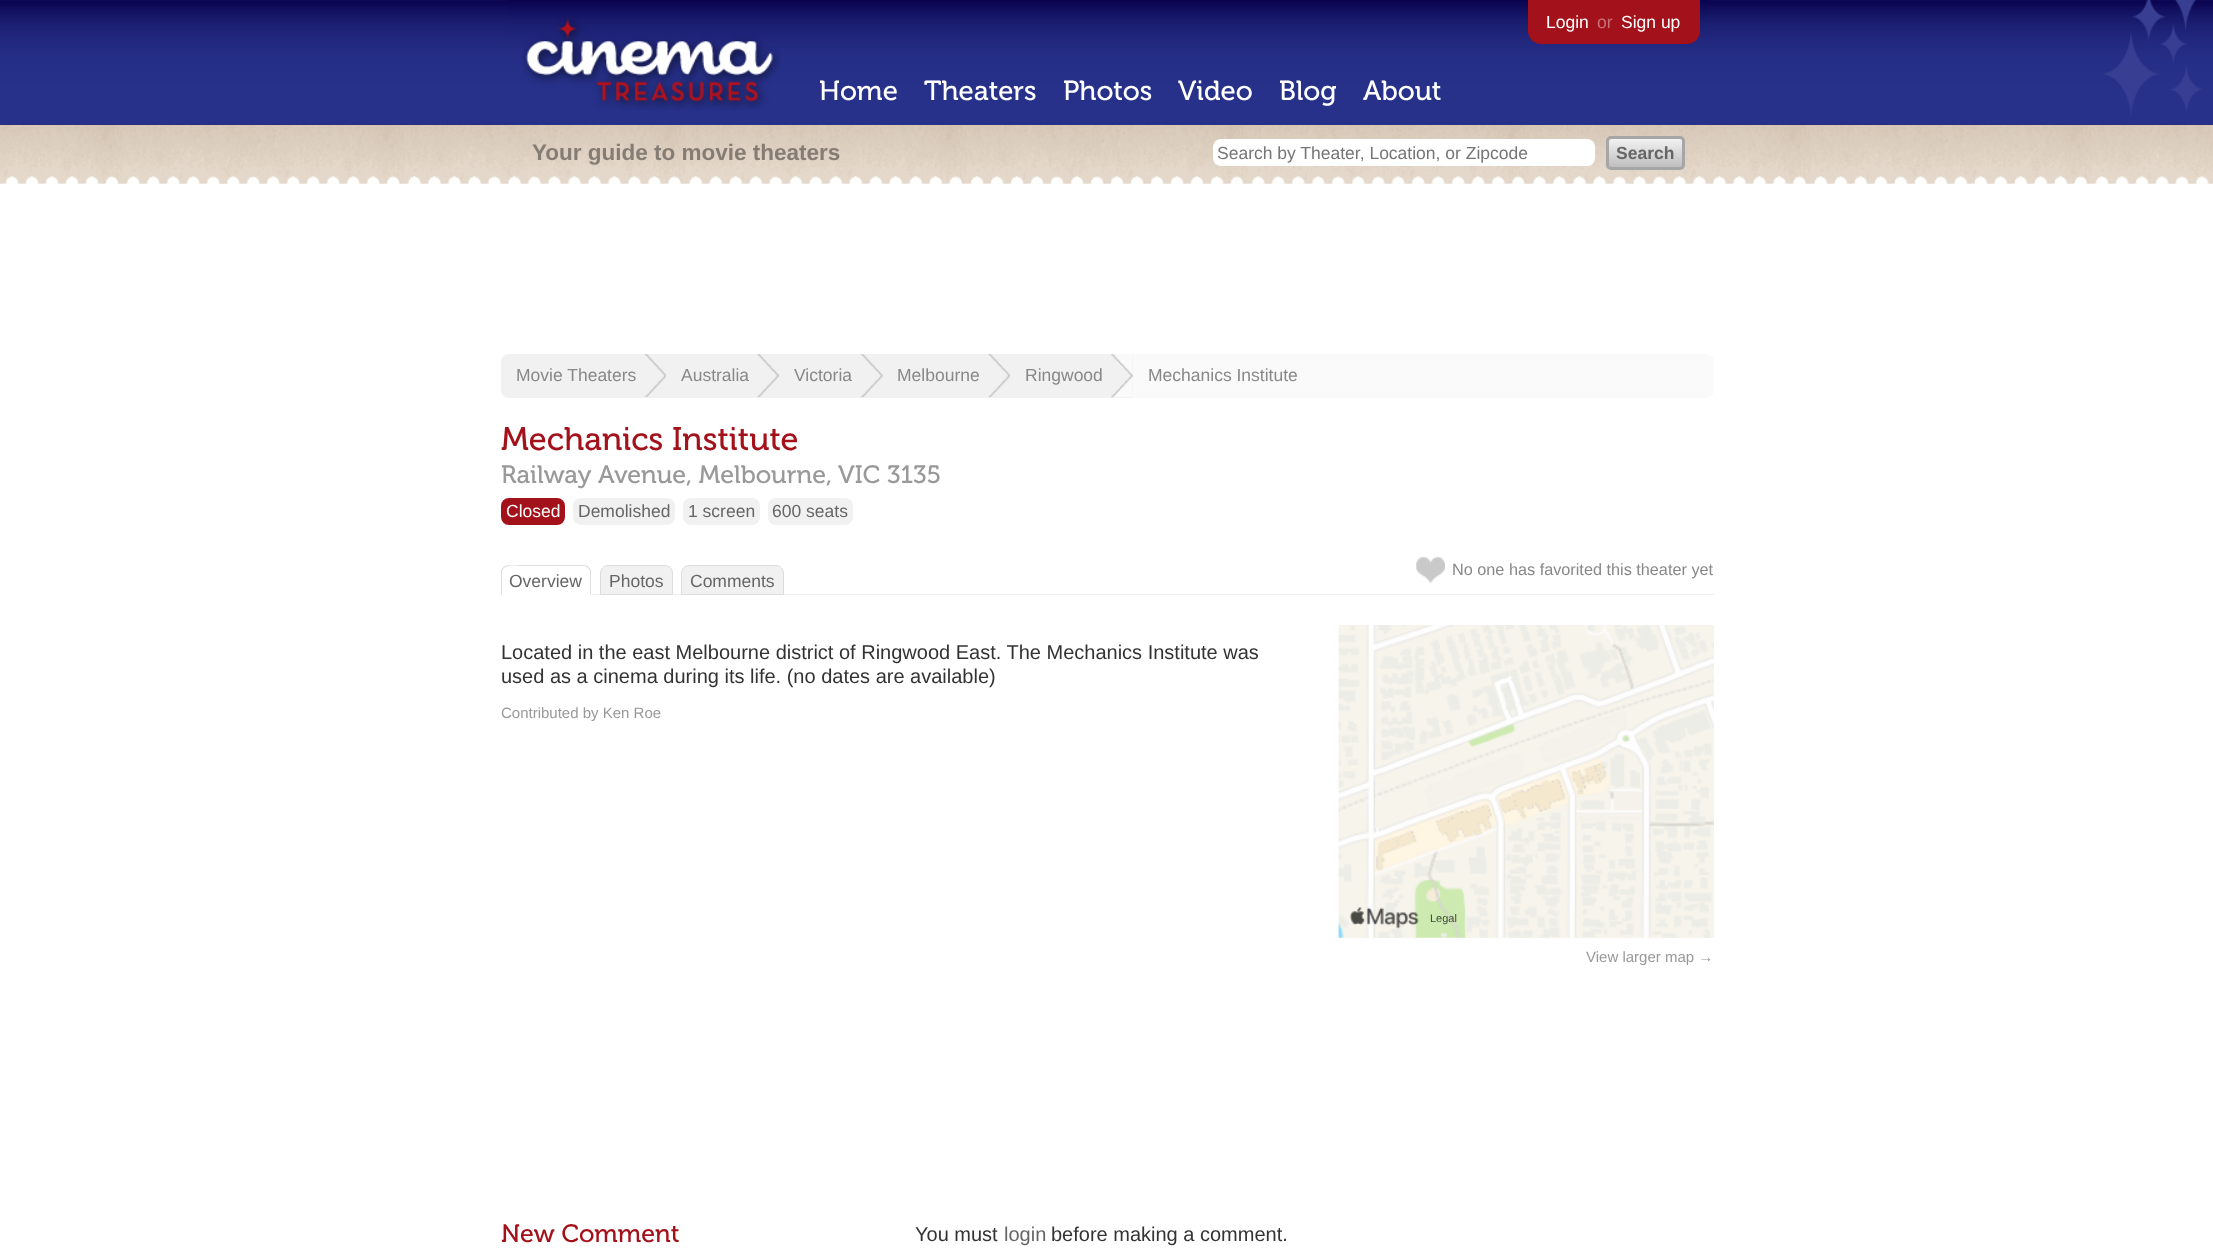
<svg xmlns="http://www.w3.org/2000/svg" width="2213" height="1254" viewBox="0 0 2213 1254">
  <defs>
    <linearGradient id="g1" gradientUnits="userSpaceOnUse" x1="1646" y1="139" x2="1646" y2="168"><stop offset="0" stop-color="#f2f2f2"/><stop offset="1" stop-color="#bdbdbd"/></linearGradient>
  </defs>
  <rect width="100%" height="100%" fill="#fff"/>
  <image x="0" y="0" width="2213" height="125" href="img/1.png"/>
  <image x="508" y="0" width="1199" height="125" href="img/2.png"/>
  <image x="522" y="18" width="258" height="92" href="img/3.png"/>
  <path d="M1528 0H1700V31C1700 38 1694 44 1687 44H1541C1534 44 1528 38 1528 31Z" fill="#a3121b"/>
  <image x="2102" y="0" width="101" height="116" href="img/4.png"/>
  <image x="0" y="125" width="2213" height="60" href="img/5.png"/>
  <rect x="1213" y="139" width="382" height="27" rx="8" fill="#fff"/>
  <rect x="1609" y="139" width="74" height="29" rx="2.5" fill="url(#g1)"/>
  <rect x="1607.5" y="137.5" width="76" height="31" rx="3.5" fill="none" stroke="#a6a6a6" stroke-width="3"/>
  <rect x="501" y="354" width="1213" height="44" rx="8" fill="#fafafa"/>
  <path d="M509 354H666V398H509C504.5 398 501 394.5 501 390V362C501 357.5 504.5 354 509 354Z" fill="#f1f1f1"/>
  <image x="644" y="354" width="22" height="44" href="img/6.png"/>
  <path d="M666 354h467v44H666z" fill="#f1f1f1"/>
  <image x="757" y="354" width="22" height="44" href="img/7.png"/>
  <image x="860" y="354" width="23" height="44" href="img/8.png"/>
  <image x="988" y="353" width="22" height="45" href="img/9.png"/>
  <image x="1111" y="354" width="22" height="44" href="img/10.png"/>
  <rect x="501" y="498" width="64" height="27" rx="8" fill="#a3121b"/>
  <rect x="573" y="498" width="102" height="27" rx="8" fill="#f1f1f1"/>
  <rect x="683" y="498" width="77" height="27" rx="8" fill="#f1f1f1"/>
  <rect x="768" y="498" width="85" height="27" rx="8" fill="#f1f1f1"/>
  <image x="1416" y="556" width="29" height="28" href="img/11.png"/>
  <path d="M591 594h1123v1H591z" fill="#eee"/>
  <path d="M509 565C507 565 505 566 503 567L504 568C508 564 518 566 522 566H585L588 568L589 567C588 566 586 565 584 565Z" fill="#ddd"/>
  <path d="M589 567C590.5 568.5 591 570 591 572V595L590 594V572C590 570.5 589.5 569 588 568Z" fill="#ddd"/>
  <path d="M501 595H591L590 594H502Z" fill="#fff"/>
  <path d="M501 595V570.5C501.5 569 502.5 568 503.5 567L504 568C503 569 502 570.5 502 572V594Z" fill="#ddd"/>
  <path d="M608 565.5H665C669 565.5 672.5 569 672.5 573V594.5H600.5V573C600.5 569 604 565.5 608 565.5Z" fill="#f1f1f1" stroke="#ddd"/>
  <path d="M689 565.5H776C780 565.5 783.5 569 783.5 573V594.5H681.5V573C681.5 569 685 565.5 689 565.5Z" fill="#f1f1f1" stroke="#ddd"/>
  <path d="M1339 625h375v313H1339z" fill="#f9f5ed"/>
  <image x="1338" y="625" width="376" height="313" href="img/12.png"/>
  <image x="1338" y="625" width="376" height="313" href="img/13.png"/>
  <image x="1350" y="907" width="69" height="22" href="img/14.png"/>
  <g font-family="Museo" font-size="27.5" fill="#fff">
    <text x="819" y="100">Home</text>
    <text x="924" y="100">Theaters</text>
    <text x="1063" y="100">Photos</text>
    <text x="1178" y="100">Video</text>
    <text x="1279" y="100">Blog</text>
    <text x="1363" y="100">About</text>
  </g>
  <text x="1546" y="28" font-family="Liberation Sans" font-size="17.5" fill="#fff">Login</text>
  <text x="1597" y="28" font-family="Liberation Sans" font-size="17.5" fill="#c87176">or</text>
  <text x="1621" y="28" font-family="Liberation Sans" font-size="17.5" fill="#fff">Sign up</text>
  <text x="532" y="160" font-family="Liberation Sans" font-size="22.5" font-weight="bold" fill="#857d74">Your guide to movie theaters</text>
  <text x="1217" y="159" font-family="Liberation Sans" font-size="17.5" fill="#757575">Search by Theater, Location, or Zipcode</text>
  <text x="1616" y="159" font-family="Liberation Sans" font-size="17.5" font-weight="bold" fill="#666">Search</text>
  <g font-family="Liberation Sans" font-size="17.5" fill="#888">
    <text x="516" y="381">Movie Theaters</text>
    <text x="681" y="381">Australia</text>
    <text x="794" y="381">Victoria</text>
    <text x="897" y="381">Melbourne</text>
    <text x="1025" y="381">Ringwood</text>
    <text x="1148" y="381">Mechanics Institute</text>
  </g>
  <text x="501" y="450" font-family="Museo" font-size="32.5" fill="#a3121b">Mechanics Institute</text>
  <g font-family="Museo" font-size="25" fill="#999">
    <text x="501" y="483">Railway Avenue, Melbourne,</text>
    <text x="838" y="483">VIC 3135</text>
  </g>
  <text x="506" y="517" font-family="Liberation Sans" font-size="17.5" fill="#fff">Closed</text>
  <g font-family="Liberation Sans" font-size="17.5" fill="#666">
    <text x="578" y="517">Demolished</text>
    <text x="688" y="517">1 screen</text>
    <text x="772" y="517">600 seats</text>
  </g>
  <text x="1452" y="575" font-family="Liberation Sans" font-size="16.25" fill="#888">No one has favorited this theater yet</text>
  <g font-family="Liberation Sans" font-size="17.5" fill="#666">
    <text x="509" y="587">Overview</text>
    <text x="609" y="587">Photos</text>
    <text x="690" y="587">Comments</text>
  </g>
  <g font-family="Liberation Sans" font-size="20" fill="#333">
    <text x="501" y="659">Located in the east Melbourne district of Ringwood East. The Mechanics Institute was</text>
    <text x="501" y="683">used as a cinema during its life. (no dates are available)</text>
  </g>
  <text x="501" y="718" font-family="Liberation Sans" font-size="15" fill="#999">Contributed by Ken Roe</text>
  <text x="1430" y="922" font-family="Liberation Sans" font-size="11" fill="#3e4636">Legal</text>
  <text x="1586" y="962" font-family="Liberation Sans" font-size="15" fill="#999">View larger map →</text>
  <text x="501" y="1242" font-family="Museo" font-size="25" fill="#a3121b">New Comment</text>
  <text x="915" y="1241" font-family="Liberation Sans" font-size="20" fill="#333">You must</text>
  <text x="1004" y="1241" font-family="Liberation Sans" font-size="20" fill="#666">login</text>
  <text x="1051" y="1241" font-family="Liberation Sans" font-size="20" fill="#333">before making a comment.</text>
</svg>
